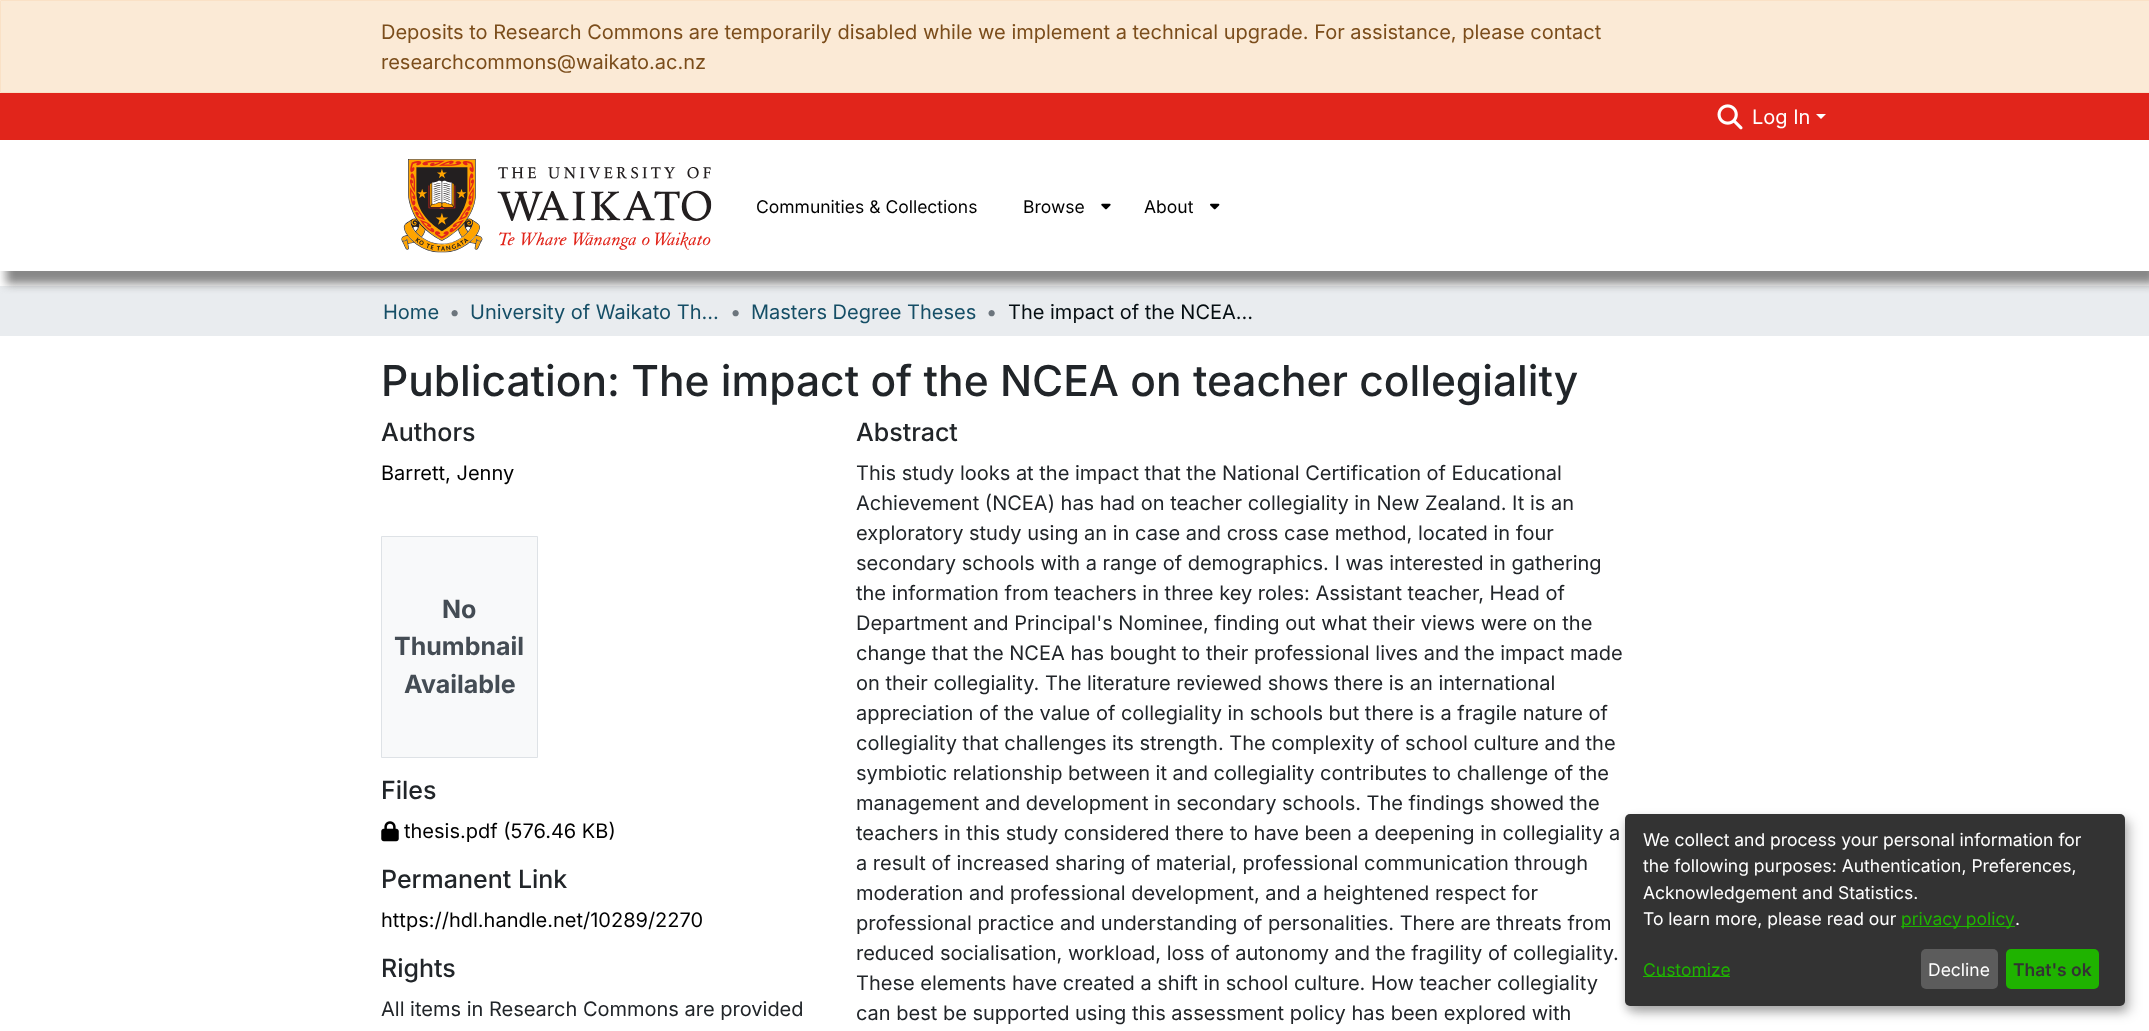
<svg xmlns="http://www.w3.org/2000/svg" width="2149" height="1031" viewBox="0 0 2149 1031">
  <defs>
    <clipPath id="clip1"><path d="M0 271h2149v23H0z"/></clipPath>
  </defs>
  <rect width="100%" height="100%" fill="#fff"/>
  <path d="M0.5 0.5h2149v92H0.5z" fill="#fbead6" stroke="#fae1c6"/>
  <path d="M0 286h2149v50H0z" fill="#e9ecef"/>
  <g clip-path="url(#clip1)">
    <path d="M6 153h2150v131H6z" fill="#888" filter="blur(5px)"/>
  </g>
  <path d="M0 93h2149v47H0z" fill="#e1251b"/>
  <image x="1717" y="104" width="26" height="26" href="img/1.png"/>
  <path d="M1816 114H1826L1821 119Z" fill="#fff"/>
  <image x="401" y="159" width="311" height="94" href="img/2.png"/>
  <image x="1101" y="203" width="10" height="7" href="img/3.png"/>
  <image x="1210" y="203" width="10" height="7" href="img/4.png"/>
  <path d="M381.5 536.5h156v221H381.5z" fill="#f8f9fa" stroke="#dee2e6"/>
  <image x="381" y="821" width="18" height="21" href="img/5.png"/>
  <rect x="1631" y="820" width="500" height="193" rx="5" fill="#00000030" filter="blur(6px)"/>
  <rect x="1625" y="819" width="500" height="192" rx="5" fill="#00000033" filter="blur(4px)"/>
  <rect x="1625" y="814" width="500" height="192" rx="5" fill="#333"/>
  <path d="M1901 926h114v1H1901z" fill="#1fb300"/>
  <path d="M1643 976h87v1H1643z" fill="#1fb300"/>
  <rect x="1921" y="949" width="77" height="40" rx="5" fill="#5c5c5c"/>
  <rect x="2006" y="949" width="93" height="40" rx="5" fill="#1fb300"/>
  <g font-family="Inter" font-size="20" fill="#7b4d1b">
    <text x="381" y="39">Deposits to Research Commons are temporarily disabled while we implement a technical upgrade. For assistance, please contact</text>
    <text x="381" y="69">researchcommons@waikato.ac.nz</text>
  </g>
  <text x="1752" y="124" font-family="Inter" font-size="20" fill="#fff">Log In</text>
  <g font-family="Inter" font-size="17.5" fill="#000">
    <text x="756" y="213">Communities &amp; Collections</text>
    <text x="1023" y="213">Browse</text>
    <text x="1144" y="213">About</text>
  </g>
  <text x="383" y="319" font-family="Inter" font-size="20" fill="#154e66">Home</text>
  <text x="449" y="319" font-family="Inter" font-size="20" fill="#6c757d">•</text>
  <text x="470" y="319" font-family="Inter" font-size="20" fill="#154e66">University of Waikato Th…</text>
  <text x="730" y="319" font-family="Inter" font-size="20" fill="#6c757d">•</text>
  <text x="751" y="319" font-family="Inter" font-size="20" fill="#154e66">Masters Degree Theses</text>
  <text x="986" y="319" font-family="Inter" font-size="20" fill="#6c757d">•</text>
  <text x="1008" y="319" font-family="Inter" font-size="20" fill="#040d11">The impact of the NCEA…</text>
  <text x="381" y="396" font-family="Inter" font-size="42.5" font-weight="500" fill="#212529">Publication: The impact of the NCEA on teacher collegiality</text>
  <text x="381" y="441" font-family="Inter" font-size="25" font-weight="500" fill="#212529">Authors</text>
  <text x="381" y="480" font-family="Inter" font-size="20" fill="#000">Barrett, Jenny</text>
  <g font-family="Inter" font-size="25" font-weight="bold" fill="#444c54">
    <text x="442" y="618">No</text>
    <text x="394" y="655">Thumbnail</text>
    <text x="404" y="693">Available</text>
  </g>
  <text x="381" y="799" font-family="Inter" font-size="25" font-weight="500" fill="#212529">Files</text>
  <text x="404" y="838" font-family="Inter" font-size="20" fill="#000">thesis.pdf (576.46 KB)</text>
  <text x="381" y="888" font-family="Inter" font-size="25" font-weight="500" fill="#212529">Permanent Link</text>
  <text x="381" y="927" font-family="Inter" font-size="20" fill="#000">https://hdl.handle.net/10289/2270</text>
  <text x="381" y="977" font-family="Inter" font-size="25" font-weight="500" fill="#212529">Rights</text>
  <text x="381" y="1016" font-family="Inter" font-size="20" fill="#212529">All items in Research Commons are provided</text>
  <text x="856" y="441" font-family="Inter" font-size="25" font-weight="500" fill="#212529">Abstract</text>
  <g font-family="Inter" font-size="20" fill="#212529">
    <text x="856" y="480">This study looks at the impact that the National Certification of Educational</text>
    <text x="856" y="510">Achievement (NCEA) has had on teacher collegiality in New Zealand. It is an</text>
    <text x="856" y="540">exploratory study using an in case and cross case method, located in four</text>
    <text x="856" y="570">secondary schools with a range of demographics. I was interested in gathering</text>
    <text x="856" y="600">the information from teachers in three key roles: Assistant teacher, Head of</text>
    <text x="856" y="630">Department and Principal's Nominee, finding out what their views were on the</text>
    <text x="856" y="660">change that the NCEA has bought to their professional lives and the impact made</text>
    <text x="856" y="690">on their collegiality. The literature reviewed shows there is an international</text>
    <text x="856" y="720">appreciation of the value of collegiality in schools but there is a fragile nature of</text>
    <text x="856" y="750">collegiality that challenges its strength. The complexity of school culture and the</text>
    <text x="856" y="780">symbiotic relationship between it and collegiality contributes to challenge of the</text>
    <text x="856" y="810">management and development in secondary schools. The findings showed the</text>
    <text x="856" y="840">teachers in this study considered there to have been a deepening in collegiality a</text>
    <text x="856" y="870">a result of increased sharing of material, professional communication through</text>
    <text x="856" y="900">moderation and professional development, and a heightened respect for</text>
    <text x="856" y="930">professional practice and understanding of personalities. There are threats from</text>
    <text x="856" y="960">reduced socialisation, workload, loss of autonomy and the fragility of collegiality.</text>
    <text x="856" y="990">These elements have created a shift in school culture. How teacher collegiality</text>
    <text x="856" y="1020">can best be supported using this assessment policy has been explored with</text>
  </g>
  <g font-family="Inter" font-size="17.5" fill="#fff">
    <text x="1643" y="846">We collect and process your personal information for</text>
    <text x="1643" y="872">the following purposes: Authentication, Preferences,</text>
    <text x="1643" y="899">Acknowledgement and Statistics.</text>
    <text x="1643" y="925">To learn more, please read our</text>
  </g>
  <text x="1901" y="925" word-spacing="-1" font-family="Inter" font-size="17.5" fill="#1fb300">privacy policy</text>
  <text x="2015" y="925" font-family="Inter" font-size="17.5" fill="#fff">.</text>
  <text x="1643" y="976" font-family="Inter" font-size="17.5" fill="#1fb300">Customize</text>
  <text x="1928" y="976" font-family="Inter" font-size="17.5" fill="#fff">Decline</text>
  <text x="2013" y="976" font-family="Inter" font-size="17.5" font-weight="600" fill="#333">That's ok</text>
</svg>
